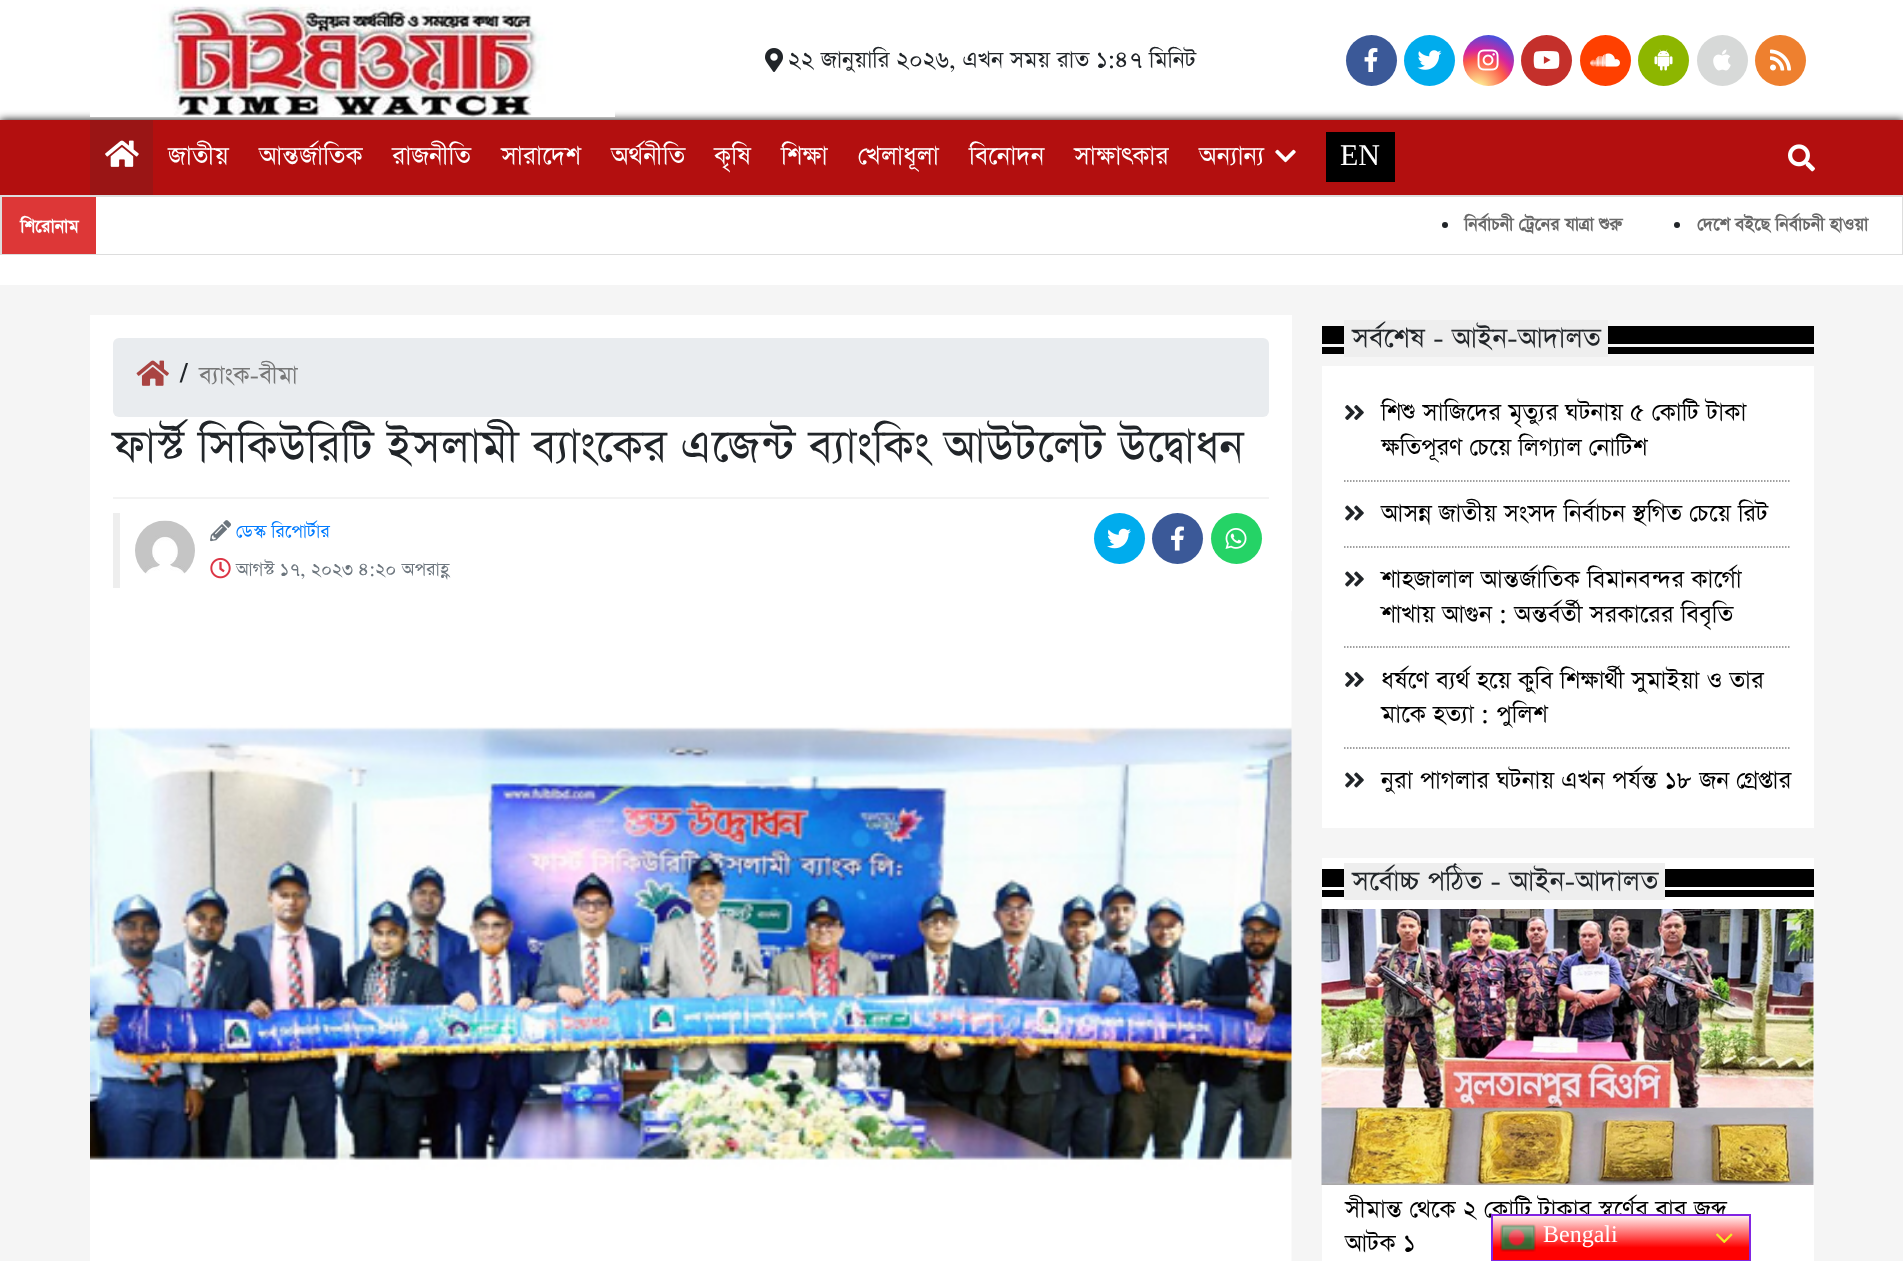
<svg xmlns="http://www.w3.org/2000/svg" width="1903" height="1261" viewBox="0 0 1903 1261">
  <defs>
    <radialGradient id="g1" gradientUnits="userSpaceOnUse" cx="1478" cy="89" r="65"><stop offset="0" stop-color="#fdf497"/><stop offset="0.05" stop-color="#fdf497"/><stop offset="0.45" stop-color="#fd5949"/><stop offset="0.6" stop-color="#d6249f"/><stop offset="0.9" stop-color="#285aeb"/></radialGradient>
    <linearGradient id="g2" gradientUnits="userSpaceOnUse" x1="1621" y1="1214" x2="1621" y2="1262"><stop offset="0" stop-color="#fff"/><stop offset="0.7" stop-color="#f00"/></linearGradient>
  </defs>
  <rect width="100%" height="100%" fill="#fff"/>
  <path d="M0 120h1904v75H0z" fill="#000" filter="blur(4px)"/>
  <image x="90" y="4" width="525" height="113" href="img/1.png"/>
  <image x="765" y="48" width="18" height="24" href="img/2.png"/>
  <circle cx="1371.5" cy="60.5" r="25.5" fill="#3b5998"/>
  <image x="1364" y="48" width="14" height="24" href="img/3.png"/>
  <circle cx="1429.5" cy="60.5" r="25.5" fill="#00aced"/>
  <image x="1417" y="50" width="25" height="20" href="img/4.png"/>
  <circle cx="1488.5" cy="60.5" r="25.5" fill="url(#g1)"/>
  <image x="1477" y="49" width="22" height="22" href="img/5.png"/>
  <circle cx="1546.5" cy="60.5" r="25.5" fill="#c4302b"/>
  <image x="1533" y="51" width="27" height="18" href="img/6.png"/>
  <circle cx="1605.5" cy="60.5" r="25.5" fill="#ff4000"/>
  <image x="1590" y="53" width="30" height="14" href="img/7.png"/>
  <circle cx="1663.5" cy="60.5" r="25.5" fill="#8db600"/>
  <image x="1654" y="49" width="19" height="22" href="img/8.png"/>
  <circle cx="1722.5" cy="60.5" r="25.5" fill="#d7d9d8"/>
  <image x="1713" y="49" width="18" height="22" href="img/9.png"/>
  <circle cx="1780.5" cy="60.5" r="25.5" fill="#ee802f"/>
  <image x="1770" y="49" width="21" height="22" href="img/10.png"/>
  <path d="M0 120h1903v75H0z" fill="#b30f0f"/>
  <path d="M90 120h63v75H90z" fill="#9a1515"/>
  <image x="105" y="140" width="34" height="27" href="img/11.png"/>
  <image x="1275" y="149" width="21" height="14" href="img/12.png"/>
  <path d="M1326 132h69v50H1326z" fill="#000"/>
  <image x="1788" y="144" width="27" height="28" href="img/13.png"/>
  <path d="M1 196h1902v58H1z" fill="none" stroke="#ddd" stroke-width="2"/>
  <path d="M2 197h94v57H2z" fill="#dd3737"/>
  <path d="M96 197h1806v57H96z" fill="#fff"/>
  <circle cx="1445" cy="225" r="3" fill="#212529"/>
  <circle cx="1677" cy="225" r="3" fill="#212529"/>
  <path d="M0 285h1903v976H0z" fill="#f5f5f5"/>
  <path d="M90 315h1202v296H90z" fill="#fff"/>
  <rect x="113" y="338" width="1156" height="79" rx="6" fill="#e9ecef"/>
  <image x="136" y="360" width="33" height="26" href="img/14.png"/>
  <path d="M113 497h1156v2H113z" fill="#f3f3f3"/>
  <path d="M113 513h7v75H113z" fill="#eee"/>
  <image x="135" y="520" width="60" height="54" href="img/15.png"/>
  <image x="210" y="520" width="21" height="22" href="img/16.png"/>
  <image x="210" y="558" width="21" height="21" href="img/17.png"/>
  <circle cx="1119.5" cy="538.5" r="25.5" fill="#00aced"/>
  <image x="1107" y="528" width="24" height="21" href="img/18.png"/>
  <circle cx="1177.5" cy="538.5" r="25.5" fill="#3b5998"/>
  <image x="1171" y="526" width="13" height="25" href="img/19.png"/>
  <circle cx="1236.5" cy="538.5" r="25.5" fill="#25d366"/>
  <image x="1225" y="528" width="22" height="21" href="img/20.png"/>
  <image x="90" y="611" width="1202" height="650" href="img/21.png"/>
  <path d="M1322 326h492v18H1322z" fill="#000"/>
  <path d="M1322 347h492v7H1322z" fill="#000"/>
  <path d="M1344 320h264v37H1344z" fill="#eee"/>
  <path d="M1322 366h492v462H1322z" fill="#fff"/>
  <path d="M1344 481H1791" fill="none" stroke="#808080" stroke-width="1.5" stroke-dasharray="1.5 1.5"/>
  <image x="1345" y="405" width="19" height="15" href="img/22.png"/>
  <path d="M1344 547H1791" fill="none" stroke="#808080" stroke-width="1.5" stroke-dasharray="1.5 1.5"/>
  <image x="1345" y="505" width="19" height="16" href="img/23.png"/>
  <path d="M1344 647H1791" fill="none" stroke="#808080" stroke-width="1.5" stroke-dasharray="1.5 1.5"/>
  <image x="1345" y="571" width="19" height="16" href="img/23.png"/>
  <path d="M1344 748H1791" fill="none" stroke="#808080" stroke-width="1.5" stroke-dasharray="1.5 1.5"/>
  <image x="1345" y="672" width="19" height="15" href="img/22.png"/>
  <image x="1345" y="772" width="19" height="16" href="img/23.png"/>
  <path d="M1322 858h492v403H1322z" fill="#fff"/>
  <path d="M1322 869h492v18H1322z" fill="#000"/>
  <path d="M1322 890h492v7H1322z" fill="#000"/>
  <path d="M1344 863h321v37H1344z" fill="#eee"/>
  <image x="1321" y="909" width="493" height="276" href="img/24.png"/>
  <text x="788" y="68" font-family="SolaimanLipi" font-size="27" fill="#212529">২২ জানুয়ারি ২০২৬, এখন সময় রাত ১:৪৭ মিনিট</text>
  <g font-family="SolaimanLipi" font-size="30" fill="#fff">
    <text x="168" y="165">জাতীয়</text>
    <text x="259" y="165">আন্তর্জাতিক</text>
    <text x="392" y="165">রাজনীতি</text>
    <text x="501" y="165">সারাদেশ</text>
    <text x="611" y="165">অর্থনীতি</text>
    <text x="714" y="165">কৃষি</text>
    <text x="781" y="165">শিক্ষা</text>
    <text x="858" y="165">খেলাধূলা</text>
    <text x="969" y="165">বিনোদন</text>
    <text x="1074" y="165">সাক্ষাৎকার</text>
    <text x="1199" y="165">অন্যান্য</text>
  </g>
  <text x="1340" y="165" font-family="Liberation Serif" font-size="30" fill="#fff">EN</text>
  <text x="20" y="233" font-family="SolaimanLipi" font-size="21" font-weight="bold" fill="#fff">শিরোনাম</text>
  <g font-family="SolaimanLipi" font-size="21" font-weight="bold" fill="#696969">
    <text x="1464" y="231">নির্বাচনী ট্রেনের যাত্রা শুরু</text>
    <text x="1697" y="231">দেশে বইছে নির্বাচনী হাওয়া</text>
  </g>
  <text x="180" y="380" font-family="SolaimanLipi" font-size="24" font-weight="bold" fill="#212529">/</text>
  <text x="199" y="384" font-family="SolaimanLipi" font-size="28.75" fill="#777">ব্যাংক-বীমা</text>
  <text x="112" y="463" font-family="SolaimanLipi" font-size="54" fill="#212529">ফার্স্ট সিকিউরিটি ইসলামী ব্যাংকের এজেন্ট ব্যাংকিং আউটলেট উদ্বোধন</text>
  <text x="236" y="538" font-family="SolaimanLipi" font-size="21.5" fill="#007bff">ডেস্ক রিপোর্টার</text>
  <text x="236" y="576" font-family="SolaimanLipi" font-size="21.5" fill="#6c757d">আগস্ট ১৭, ২০২৩ ৪:২০ অপরাহ্ণ</text>
  <text x="1352" y="348" font-family="SolaimanLipi" font-size="32.5" fill="#212529">সর্বশেষ - আইন-আদালত</text>
  <g font-family="SolaimanLipi" font-size="28.75" fill="#000">
    <text x="1381" y="421">শিশু সাজিদের মৃত্যুর ঘটনায় ৫ কোটি টাকা</text>
    <text x="1381" y="456">ক্ষতিপূরণ চেয়ে লিগ্যাল নোটিশ</text>
    <text x="1381" y="522">আসন্ন জাতীয় সংসদ নির্বাচন স্থগিত চেয়ে রিট</text>
    <text x="1381" y="588">শাহজালাল আন্তর্জাতিক বিমানবন্দর কার্গো</text>
    <text x="1381" y="623">শাখায় আগুন : অন্তর্বর্তী সরকারের বিবৃতি</text>
    <text x="1381" y="689">ধর্ষণে ব্যর্থ হয়ে কুবি শিক্ষার্থী সুমাইয়া ও তার</text>
    <text x="1381" y="723">মাকে হত্যা : পুলিশ</text>
    <text x="1381" y="789">নুরা পাগলার ঘটনায় এখন পর্যন্ত ১৮ জন গ্রেপ্তার</text>
  </g>
  <text x="1352" y="891" font-family="SolaimanLipi" font-size="32.5" fill="#212529">সর্বোচ্চ পঠিত - আইন-আদালত</text>
  <g font-family="SolaimanLipi" font-size="28.75" fill="#000">
    <text x="1345" y="1218">সীমান্ত থেকে ২ কোটি টাকার স্বর্ণের বার জব্দ,</text>
    <text x="1345" y="1252">আটক ১</text>
  </g>
  <path d="M1493 1216h256v44H1493z" fill="url(#g2)"/>
  <path d="M1492 1215h258v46H1492z" fill="none" stroke="#8224e3" stroke-width="2"/>
  <image x="1500" y="1224" width="36" height="28" href="img/25.png"/>
  <text x="1543" y="1242" font-family="Liberation Serif" font-size="24" fill="#fff">Bengali</text>
  <image x="1716" y="1233" width="17" height="10" href="img/26.png"/>
</svg>
